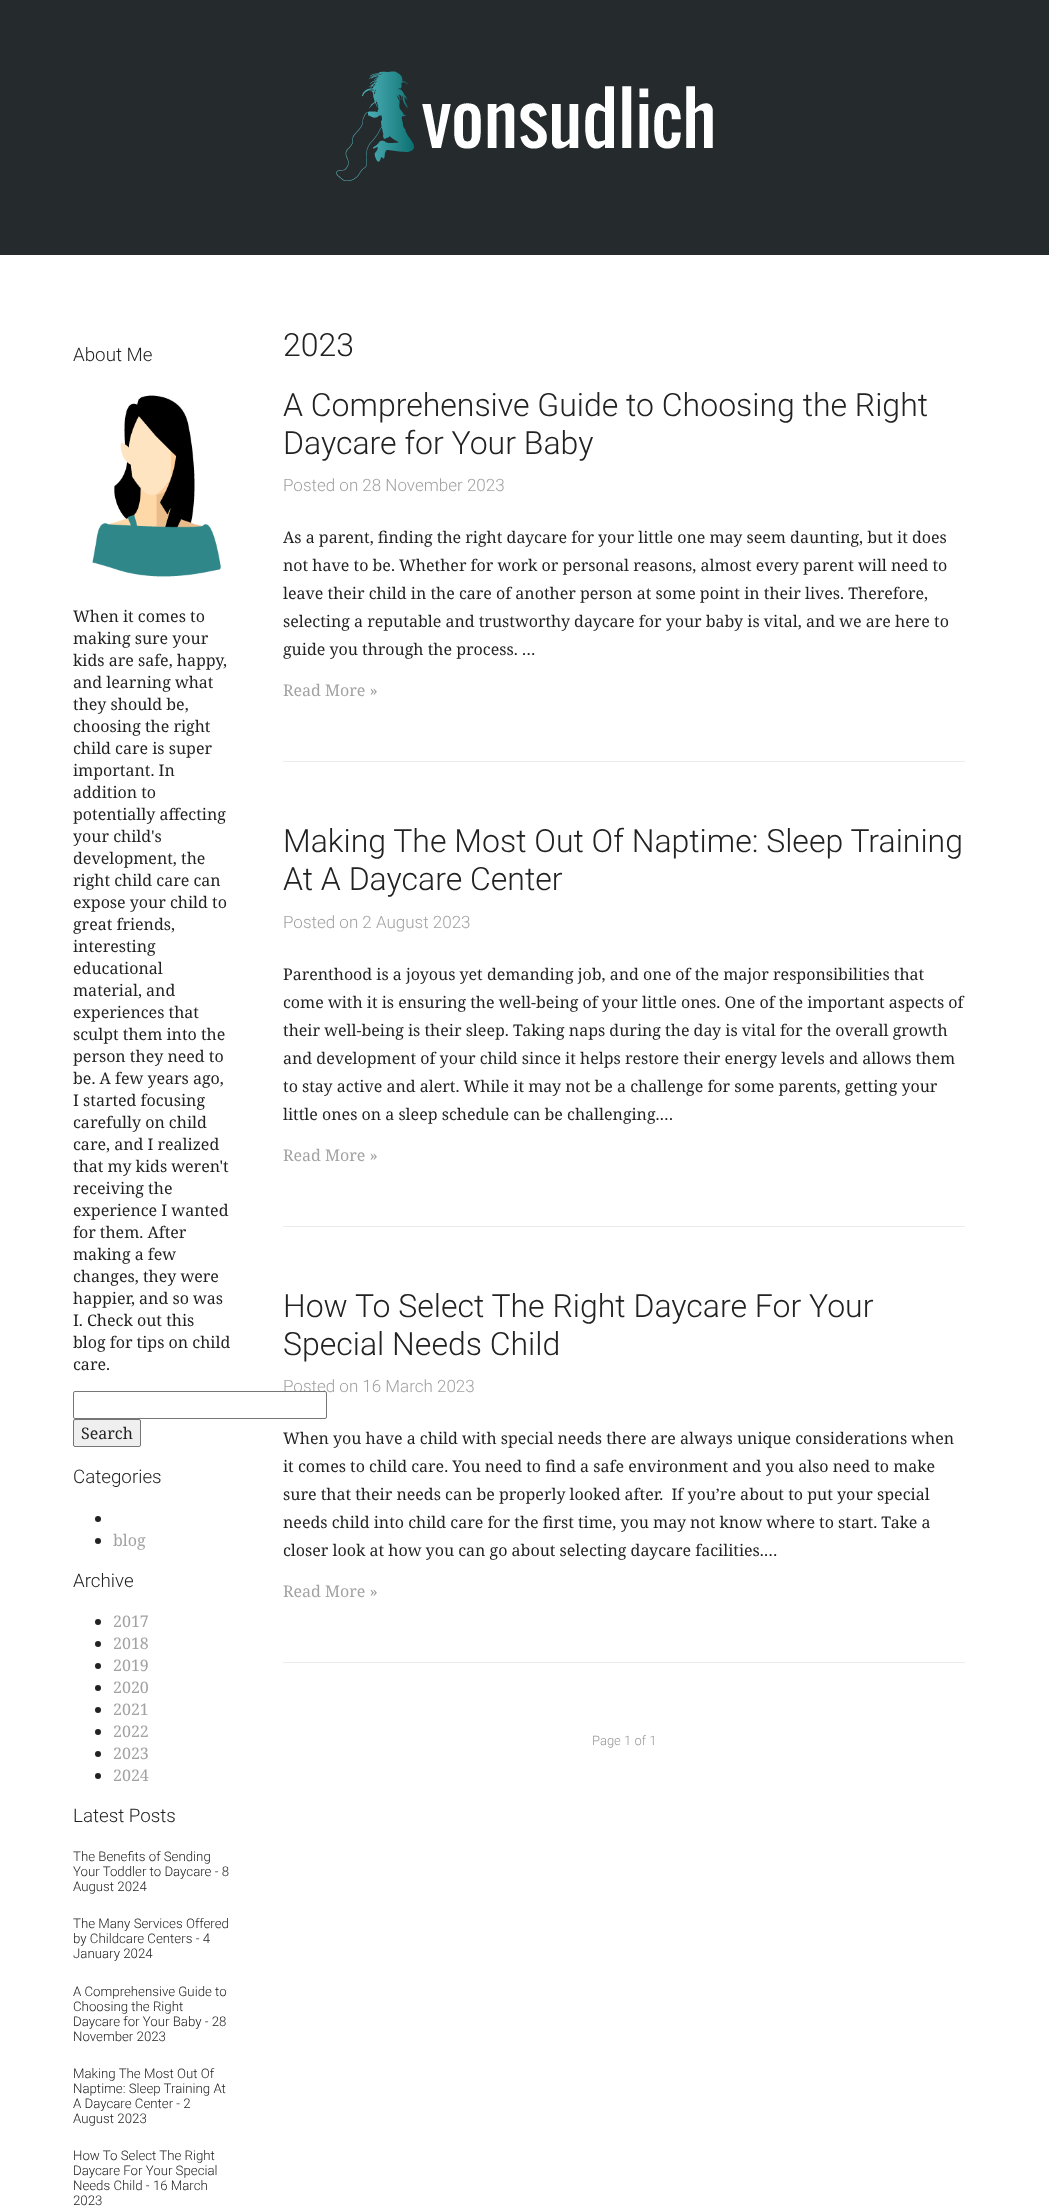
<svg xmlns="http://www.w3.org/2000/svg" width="1049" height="2210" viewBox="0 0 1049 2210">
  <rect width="100%" height="100%" fill="#fff"/>
  <path d="M0 0h1049v255H0z" fill="#252a2d"/>
  <image x="336" y="71" width="377" height="110" href="img/1.png"/>
  <image x="92" y="395" width="129" height="182" href="img/2.png"/>
  <rect x="73.5" y="1419.5" width="67" height="27" rx="1.5" fill="#efefef" stroke="#767676"/>
  <circle cx="98" cy="1519" r="3" fill="#222"/>
  <circle cx="98" cy="1541" r="3" fill="#222"/>
  <circle cx="98" cy="1622" r="3" fill="#222"/>
  <circle cx="98" cy="1644" r="3" fill="#222"/>
  <circle cx="98" cy="1666" r="3" fill="#222"/>
  <circle cx="98" cy="1688" r="3" fill="#222"/>
  <circle cx="98" cy="1710" r="3" fill="#222"/>
  <circle cx="98" cy="1732" r="3" fill="#222"/>
  <circle cx="98" cy="1754" r="3" fill="#222"/>
  <circle cx="98" cy="1776" r="3" fill="#222"/>
  <path d="M283 761h682v1H283z" fill="#ececec"/>
  <path d="M283 1226h682v1H283z" fill="#ececec"/>
  <path d="M283 1662h682v1H283z" fill="#ececec"/>
  <text x="73" y="361" font-family="Roboto" font-size="18.75" font-weight="300" fill="#222">About Me</text>
  <g font-family="Noto Serif" font-size="16" fill="#222">
    <text x="73" y="622">When it comes to</text>
    <text x="73" y="644">making sure your</text>
    <text x="73" y="666">kids are safe, happy,</text>
    <text x="73" y="688">and learning what</text>
    <text x="73" y="710">they should be,</text>
    <text x="73" y="732">choosing the right</text>
    <text x="73" y="754">child care is super</text>
    <text x="73" y="776">important. In</text>
    <text x="73" y="798">addition to</text>
    <text x="73" y="820">potentially affecting</text>
    <text x="73" y="842">your child's</text>
    <text x="73" y="864">development, the</text>
    <text x="73" y="886">right child care can</text>
    <text x="73" y="908">expose your child to</text>
    <text x="73" y="930">great friends,</text>
    <text x="73" y="952">interesting</text>
    <text x="73" y="974">educational</text>
    <text x="73" y="996">material, and</text>
    <text x="73" y="1018">experiences that</text>
    <text x="73" y="1040">sculpt them into the</text>
    <text x="73" y="1062">person they need to</text>
    <text x="73" y="1084">be. A few years ago,</text>
    <text x="73" y="1106">I started focusing</text>
    <text x="73" y="1128">carefully on child</text>
    <text x="73" y="1150">care, and I realized</text>
    <text x="73" y="1172">that my kids weren't</text>
    <text x="73" y="1194">receiving the</text>
    <text x="73" y="1216">experience I wanted</text>
    <text x="73" y="1238">for them. After</text>
    <text x="73" y="1260">making a few</text>
    <text x="73" y="1282">changes, they were</text>
    <text x="73" y="1304">happier, and so was</text>
    <text x="73" y="1326">I. Check out this</text>
    <text x="73" y="1348">blog for tips on child</text>
    <text x="73" y="1370">care.</text>
    <text x="81" y="1439">Search</text>
  </g>
  <text x="73" y="1483" font-family="Roboto" font-size="18.75" font-weight="300" fill="#222">Categories</text>
  <text x="113" y="1546" font-family="Noto Serif" font-size="16" fill="#a2a2a2">blog</text>
  <text x="73" y="1587" font-family="Roboto" font-size="18.75" font-weight="300" fill="#222">Archive</text>
  <g font-family="Noto Serif" font-size="16" fill="#a2a2a2">
    <text x="113" y="1627">2017</text>
    <text x="113" y="1649">2018</text>
    <text x="113" y="1671">2019</text>
    <text x="113" y="1693">2020</text>
    <text x="113" y="1715">2021</text>
    <text x="113" y="1737">2022</text>
    <text x="113" y="1759">2023</text>
    <text x="113" y="1781">2024</text>
  </g>
  <text x="73" y="1822" font-family="Roboto" font-size="18.75" font-weight="300" fill="#222">Latest Posts</text>
  <g font-family="Roboto" font-size="13.25" font-weight="300" fill="#222">
    <text x="73" y="1861">The Benefits of Sending</text>
    <text x="73" y="1876">Your Toddler to Daycare - 8</text>
    <text x="73" y="1891">August 2024</text>
    <text x="73" y="1928">The Many Services Offered</text>
    <text x="73" y="1943">by Childcare Centers - 4</text>
    <text x="73" y="1958">January 2024</text>
    <text x="73" y="1996">A Comprehensive Guide to</text>
    <text x="73" y="2011">Choosing the Right</text>
    <text x="73" y="2026">Daycare for Your Baby - 28</text>
    <text x="73" y="2041">November 2023</text>
    <text x="73" y="2078">Making The Most Out Of</text>
    <text x="73" y="2093">Naptime: Sleep Training At</text>
    <text x="73" y="2108">A Daycare Center - 2</text>
    <text x="73" y="2123">August 2023</text>
    <text x="73" y="2160">How To Select The Right</text>
    <text x="73" y="2175">Daycare For Your Special</text>
    <text x="73" y="2190">Needs Child - 16 March</text>
    <text x="73" y="2205">2023</text>
  </g>
  <g font-family="Roboto" font-size="32" font-weight="300" fill="#222">
    <text x="283" y="356">2023</text>
    <text x="283" y="416">A Comprehensive Guide to Choosing the Right</text>
    <text x="283" y="454">Daycare for Your Baby</text>
  </g>
  <text x="283" y="491" font-family="Roboto" font-size="17" font-weight="300" fill="#a2a2a2">Posted on 28 November 2023</text>
  <g font-family="Noto Serif" font-size="16" fill="#222">
    <text x="283" y="543">As a parent, finding the right daycare for your little one may seem daunting, but it does</text>
    <text x="283" y="571">not have to be. Whether for work or personal reasons, almost every parent will need to</text>
    <text x="283" y="599">leave their child in the care of another person at some point in their lives. Therefore,</text>
    <text x="283" y="627">selecting a reputable and trustworthy daycare for your baby is vital, and we are here to</text>
    <text x="283" y="655">guide you through the process. …</text>
  </g>
  <text x="283" y="696" font-family="Noto Serif" font-size="16" fill="#a2a2a2">Read More »</text>
  <g font-family="Roboto" font-size="32" font-weight="300" fill="#222">
    <text x="283" y="852">Making The Most Out Of Naptime: Sleep Training</text>
    <text x="283" y="890">At A Daycare Center</text>
  </g>
  <text x="283" y="928" font-family="Roboto" font-size="17" font-weight="300" fill="#a2a2a2">Posted on 2 August 2023</text>
  <g font-family="Noto Serif" font-size="16" fill="#222">
    <text x="283" y="980">Parenthood is a joyous yet demanding job, and one of the major responsibilities that</text>
    <text x="283" y="1008">come with it is ensuring the well-being of your little ones. One of the important aspects of</text>
    <text x="283" y="1036">their well-being is their sleep. Taking naps during the day is vital for the overall growth</text>
    <text x="283" y="1064">and development of your child since it helps restore their energy levels and allows them</text>
    <text x="283" y="1092">to stay active and alert. While it may not be a challenge for some parents, getting your</text>
    <text x="283" y="1120">little ones on a sleep schedule can be challenging.…</text>
  </g>
  <text x="283" y="1161" font-family="Noto Serif" font-size="16" fill="#a2a2a2">Read More »</text>
  <g font-family="Roboto" font-size="32" font-weight="300" fill="#222">
    <text x="283" y="1317">How To Select The Right Daycare For Your</text>
    <text x="283" y="1355">Special Needs Child</text>
  </g>
  <text x="283" y="1392" font-family="Roboto" font-size="17" font-weight="300" fill="#a2a2a2">Posted on 16 March 2023</text>
  <rect x="73.5" y="1391.5" width="253" height="27" rx="1.5" fill="#fff" stroke="#767676"/>
  <g font-family="Noto Serif" font-size="16" fill="#222">
    <text x="283" y="1444">When you have a child with special needs there are always unique considerations when</text>
    <text x="283" y="1472">it comes to child care. You need to find a safe environment and you also need to make</text>
    <text x="283" y="1500" xml:space="preserve">sure that their needs can be properly looked after.  If you’re about to put your special</text>
    <text x="283" y="1528">needs child into child care for the first time, you may not know where to start. Take a</text>
    <text x="283" y="1556">closer look at how you can go about selecting daycare facilities.…</text>
  </g>
  <text x="283" y="1597" font-family="Noto Serif" font-size="16" fill="#a2a2a2">Read More »</text>
  <text x="592" y="1745" font-family="Roboto" font-size="13" font-weight="300" fill="#979797">Page 1 of 1</text>
</svg>
